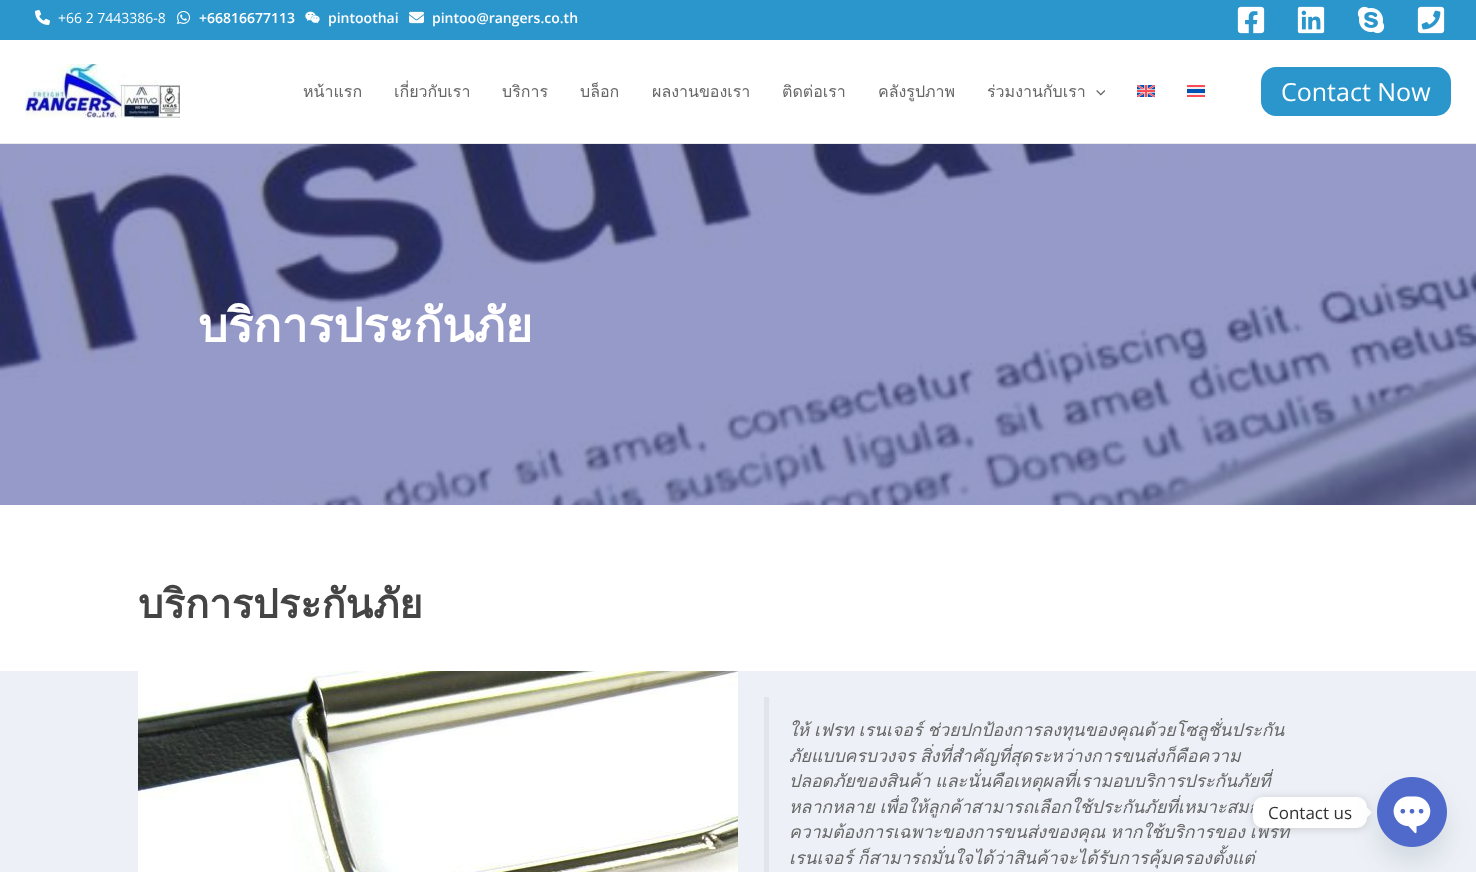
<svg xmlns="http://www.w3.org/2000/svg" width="1476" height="872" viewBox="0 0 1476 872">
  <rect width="100%" height="100%" fill="#fff"/>
  <path d="M0 0h1476v40H0z" fill="#2b96cc"/>
  <image x="35" y="10" width="15" height="15" href="img/1.png"/>
  <image x="177" y="10" width="14" height="14" href="img/2.png"/>
  <image x="305" y="11" width="15" height="13" href="img/3.png"/>
  <image x="409" y="11" width="15" height="13" href="img/4.png"/>
  <image x="1237" y="6" width="28" height="28" href="img/5.png"/>
  <image x="1297" y="6" width="28" height="28" href="img/6.png"/>
  <image x="1357" y="6" width="28" height="28" href="img/7.png"/>
  <image x="1417" y="6" width="28" height="28" href="img/8.png"/>
  <path d="M0 143h1476v1H0z" fill="#eaeaea"/>
  <image x="25" y="64" width="155" height="54" href="img/9.png"/>
  <image x="1096" y="90" width="9" height="6" href="img/10.png"/>
  <image x="1137" y="85" width="18" height="12" href="img/11.png"/>
  <path d="M1187 85h18v12H1187z" fill="#ff4b55"/>
  <path d="M1187 87h18v8H1187z" fill="#f0f0f0"/>
  <path d="M1187 89h18v4H1187z" fill="#0052b4"/>
  <rect x="1261" y="67" width="190" height="49" rx="15" fill="#2b96cc"/>
  <image x="0" y="144" width="1476" height="361" href="img/12.png"/>
  <path d="M0 671h1476v201H0z" fill="#edf0f6"/>
  <image x="138" y="671" width="600" height="201" href="img/13.png"/>
  <path d="M764 697h5v175H764z" fill="#e1e4ea"/>
  <rect x="1253" y="798" width="114" height="31" rx="10" fill="#00000026" filter="blur(4px)"/>
  <path d="M1367 817.5V807.5L1372 812.5Z" fill="#fff"/>
  <text x="58" y="23" font-family="Open Sans" font-size="14" fill="#fff">+66 2 7443386-8</text>
  <g font-family="Open Sans" font-size="14" font-weight="600" fill="#fff">
    <text x="199" y="23">+66816677113</text>
    <text x="328" y="23">pintoothai</text>
    <text x="432" y="23">pintoo@rangers.co.th</text>
  </g>
  <g font-family="Loma" font-size="16" fill="#666">
    <text x="303" y="97">หน้าแรก</text>
    <text x="394" y="97">เกี่ยวกับเรา</text>
    <text x="502" y="97">บริการ</text>
    <text x="580" y="97">บล็อก</text>
    <text x="652" y="97">ผลงานของเรา</text>
    <text x="782" y="97">ติดต่อเรา</text>
    <text x="878" y="97">คลังรูปภาพ</text>
    <text x="987" y="97">ร่วมงานกับเรา</text>
  </g>
  <text x="1281" y="101" font-family="Open Sans" font-size="25" fill="#fff">Contact Now</text>
  <text x="198" y="342" font-family="Loma" font-size="47" font-weight="bold" fill="#fff">บริการประกันภัย</text>
  <text x="138" y="618" font-family="Loma" font-size="40" font-weight="bold" fill="#444">บริการประกันภัย</text>
  <g font-family="Loma" font-size="17.6" font-style="italic" fill="#666">
    <text x="789" y="736" word-spacing="-1">ให้ เฟรท เรนเจอร์ ช่วยปกป้องการลงทุนของคุณด้วยโซลูชั่นประกัน</text>
    <text x="789" y="762" word-spacing="-1">ภัยแบบครบวงจร สิ่งที่สำคัญที่สุดระหว่างการขนส่งก็คือความ</text>
    <text x="789" y="787" word-spacing="-1">ปลอดภัยของสินค้า และนั่นคือเหตุผลที่เรามอบบริการประกันภัยที่</text>
    <text x="789" y="813" word-spacing="-1">หลากหลาย เพื่อให้ลูกค้าสามารถเลือกใช้ประกันภัยที่เหมาะสมก</text>
    <text x="789" y="838" word-spacing="-1">ความต้องการเฉพาะของการขนส่งของคุณ หากใช้บริการของ เฟรท</text>
    <text x="789" y="864" word-spacing="-1">เรนเจอร์ ก็สามารถมั่นใจได้ว่าสินค้าจะได้รับการคุ้มครองตั้งแต่</text>
  </g>
  <rect x="1253" y="797" width="114" height="31" rx="10" fill="#fff"/>
  <text x="1268" y="819" font-family="Open Sans" font-size="17" fill="#333">Contact us</text>
  <rect x="1377" y="793" width="70" height="70" rx="35" fill="#49687e29" filter="blur(12px)"/>
  <image x="1377" y="777" width="70" height="70" href="img/14.png"/>
</svg>
